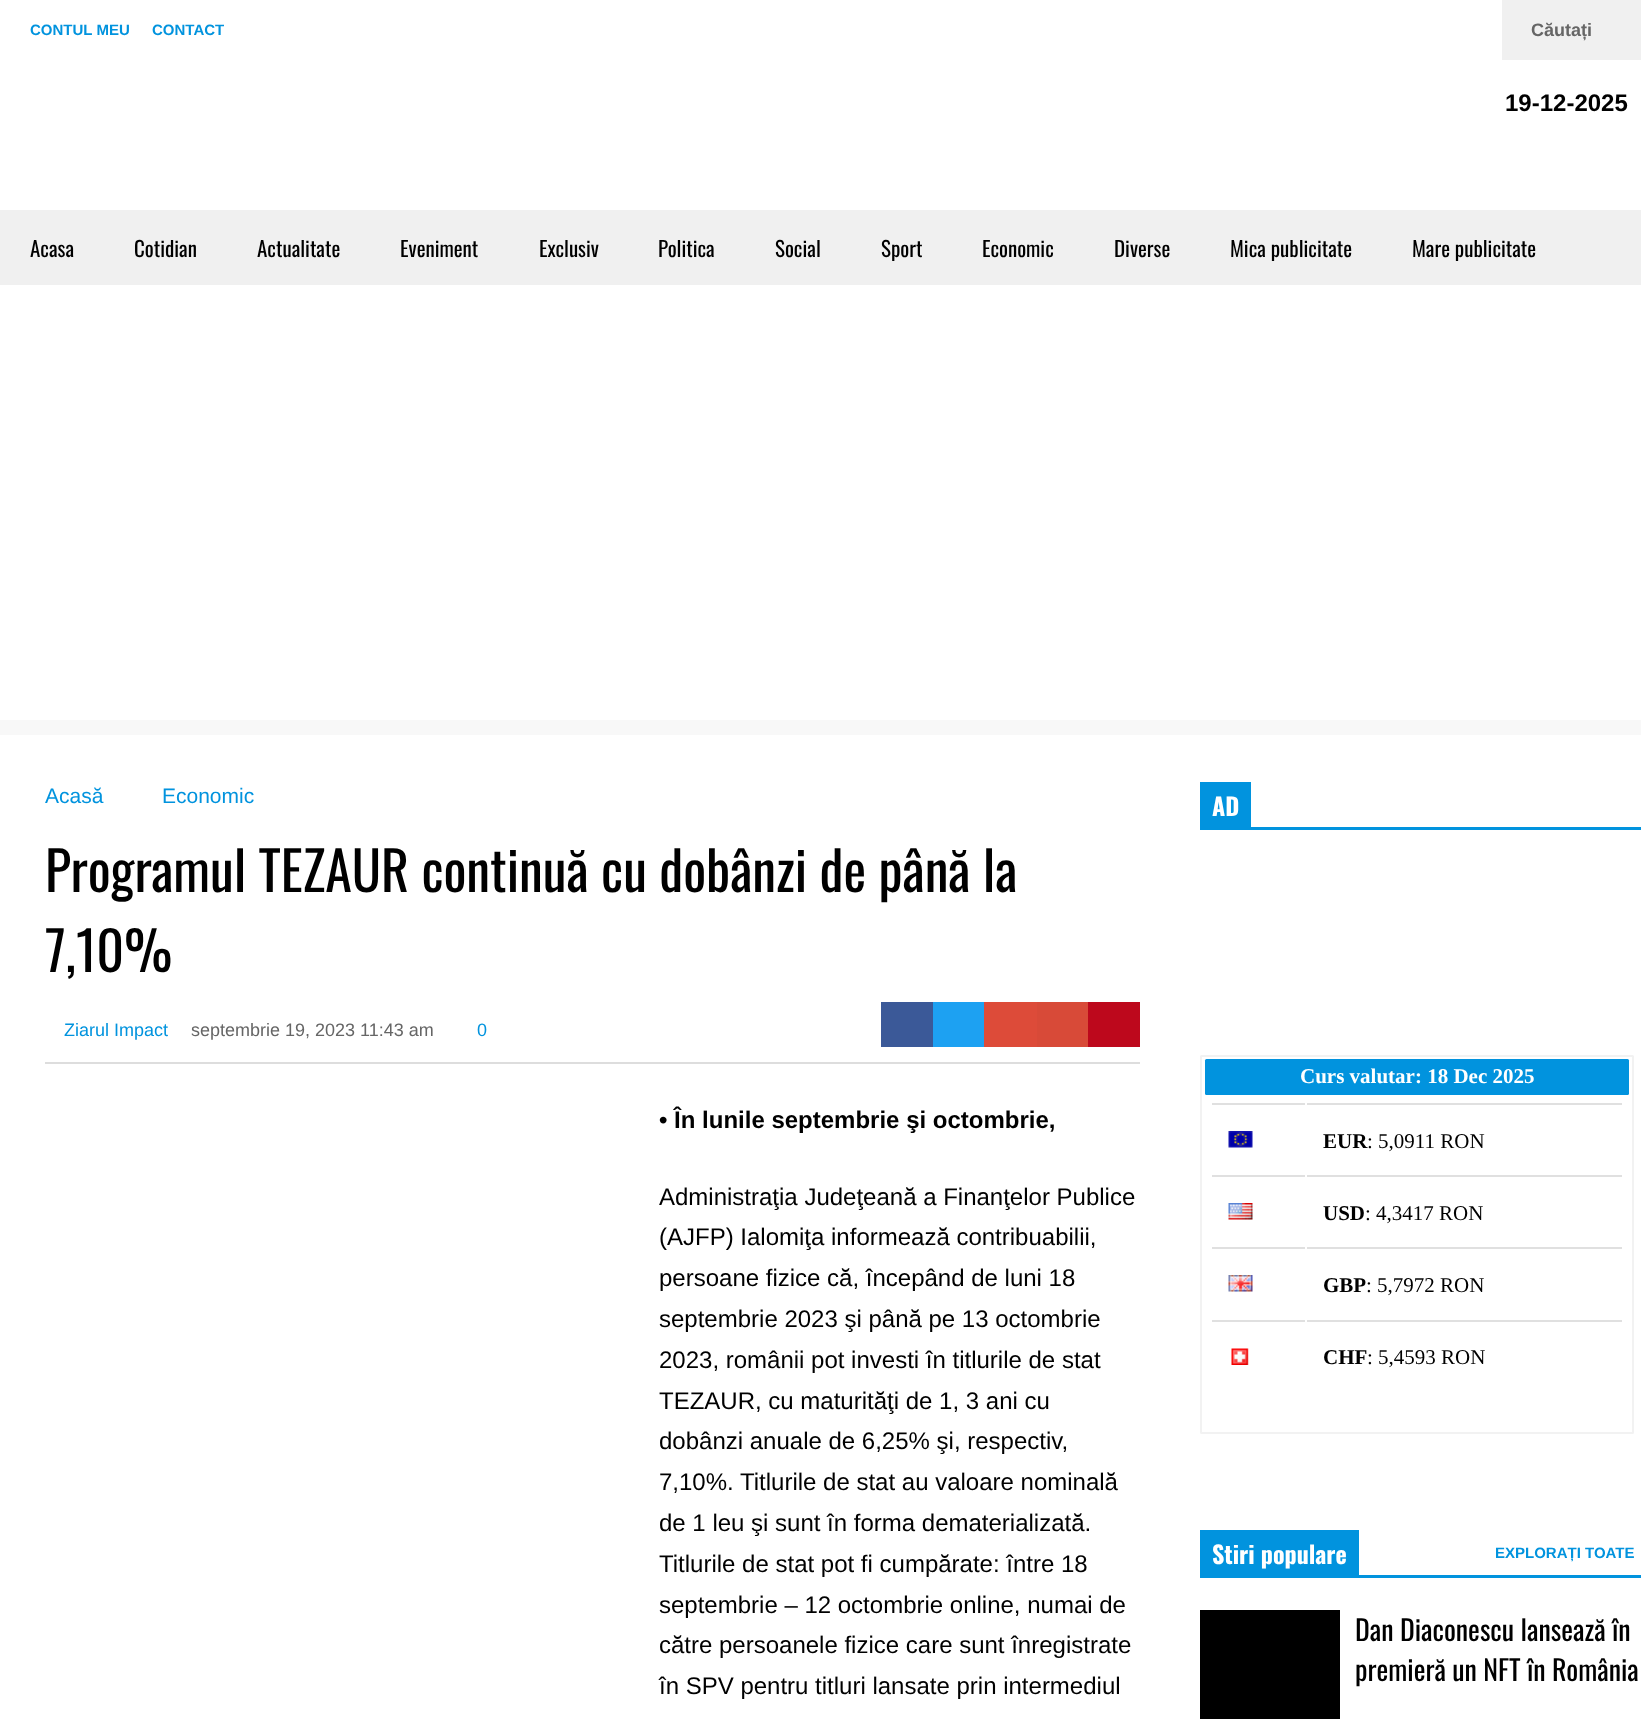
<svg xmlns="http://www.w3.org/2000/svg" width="1641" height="1719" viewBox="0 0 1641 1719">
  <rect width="100%" height="100%" fill="#f8f8f8"/>
  <path d="M0 0h1641v720H0z" fill="#fff"/>
  <path d="M1502 0h139v60H1502z" fill="#f0f0f0"/>
  <path d="M0 210h1641v75H0z" fill="#f0f0f0"/>
  <path d="M0 735h1641v984H0z" fill="#fff"/>
  <path d="M45 1062h1095v2H45z" fill="#ddd"/>
  <path d="M881 1002h52v45H881z" fill="#3b5998"/>
  <path d="M933 1002h51v45H933z" fill="#1da1f2"/>
  <path d="M984 1002h53v45H984z" fill="#dd4b39"/>
  <path d="M1037 1002h51v45H1037z" fill="#d84a38"/>
  <path d="M1088 1002h52v45H1088z" fill="#bd081c"/>
  <path d="M1251 827h390v3H1251z" fill="#0193de"/>
  <path d="M1200 782h51v48H1200z" fill="#0193de"/>
  <rect x="1201" y="1056" width="432" height="377" rx="0.5" fill="none" stroke="#f2f2f2" stroke-width="2"/>
  <rect x="1205" y="1059" width="424" height="36" rx="1.5" fill="#0193de"/>
  <path d="M1212 1103h93v2H1212z" fill="#e0e0e0"/>
  <image x="1228" y="1131" width="25" height="17" href="img/1.png"/>
  <path d="M1307 1103h315v2H1307z" fill="#e0e0e0"/>
  <path d="M1212 1175h93v2H1212z" fill="#e0e0e0"/>
  <image x="1228" y="1203" width="25" height="17" href="img/2.png"/>
  <path d="M1307 1175h315v2H1307z" fill="#e0e0e0"/>
  <path d="M1212 1247h93v2H1212z" fill="#e0e0e0"/>
  <image x="1228" y="1275" width="25" height="17" href="img/3.png"/>
  <path d="M1307 1247h315v2H1307z" fill="#e0e0e0"/>
  <path d="M1212 1320h93v2H1212z" fill="#e0e0e0"/>
  <image x="1231" y="1348" width="18" height="17" href="img/4.png"/>
  <path d="M1307 1320h315v2H1307z" fill="#e0e0e0"/>
  <path d="M1359 1575h282v3H1359z" fill="#0193de"/>
  <path d="M1200 1530h159v48H1200z" fill="#0193de"/>
  <path d="M1200 1610h140v109H1200z" fill="#000"/>
  <g font-family="Liberation Sans" font-size="15" font-weight="bold" fill="#0193de">
    <text x="30" y="35">CONTUL MEU</text>
    <text x="152" y="35">CONTACT</text>
  </g>
  <text x="1531" y="36" font-family="Liberation Sans" font-size="18" font-weight="bold" fill="#666">Căutați</text>
  <text x="1505" y="111" font-family="Liberation Sans" font-size="24" font-weight="bold" fill="#000">19-12-2025</text>
  <g font-family="Oswald" font-size="21" fill="#000">
    <text x="30" y="257">Acasa</text>
    <text x="134" y="257">Cotidian</text>
    <text x="257" y="257">Actualitate</text>
    <text x="400" y="257">Eveniment</text>
    <text x="539" y="257">Exclusiv</text>
    <text x="658" y="257">Politica</text>
    <text x="775" y="257">Social</text>
    <text x="881" y="257">Sport</text>
    <text x="982" y="257">Economic</text>
    <text x="1114" y="257">Diverse</text>
    <text x="1230" y="257">Mica publicitate</text>
    <text x="1412" y="257">Mare publicitate</text>
  </g>
  <g font-family="Liberation Sans" font-size="21" fill="#0193de">
    <text x="45" y="803">Acasă</text>
    <text x="162" y="803">Economic</text>
  </g>
  <g font-family="Oswald" font-size="54" fill="#000">
    <text x="45" y="892">Programul TEZAUR continuă cu dobânzi de până la</text>
    <text x="45" y="972">7,10%</text>
  </g>
  <text x="64" y="1036" font-family="Liberation Sans" font-size="18" fill="#0193de">Ziarul Impact</text>
  <text x="191" y="1036" font-family="Liberation Sans" font-size="18" fill="#666">septembrie 19, 2023 11:43 am</text>
  <text x="477" y="1036" font-family="Liberation Sans" font-size="18" fill="#0193de">0</text>
  <text x="659" y="1128" font-family="Liberation Sans" font-size="24" font-weight="bold" fill="#000">• În lunile septembrie şi octombrie,</text>
  <g font-family="Liberation Sans" font-size="24" fill="#000">
    <text x="659" y="1205">Administraţia Judeţeană a Finanţelor Publice</text>
    <text x="659" y="1245">(AJFP) Ialomiţa informează contribuabilii,</text>
    <text x="659" y="1286">persoane fizice că, începând de luni 18</text>
    <text x="659" y="1327">septembrie 2023 şi până pe 13 octombrie</text>
    <text x="659" y="1368">2023, românii pot investi în titlurile de stat</text>
    <text x="659" y="1409">TEZAUR, cu maturităţi de 1, 3 ani cu</text>
    <text x="659" y="1449">dobânzi anuale de 6,25% şi, respectiv,</text>
    <text x="659" y="1490">7,10%. Titlurile de stat au valoare nominală</text>
    <text x="659" y="1531">de 1 leu şi sunt în forma dematerializată.</text>
    <text x="659" y="1572">Titlurile de stat pot fi cumpărate: între 18</text>
    <text x="659" y="1613">septembrie – 12 octombrie online, numai de</text>
    <text x="659" y="1653">către persoanele fizice care sunt înregistrate</text>
    <text x="659" y="1694">în SPV pentru titluri lansate prin intermediul</text>
  </g>
  <text x="1212" y="816" font-family="Oswald" font-size="24" font-weight="bold" fill="#fff">AD</text>
  <text x="1300" y="1083" font-family="Liberation Serif" font-size="21" font-weight="bold" fill="#fff">Curs valutar: 18 Dec 2025</text>
  <text x="1323" y="1148" font-family="Liberation Serif" font-size="21" font-weight="bold" fill="#000">EUR</text>
  <text x="1367" y="1148" font-family="Liberation Serif" font-size="21" fill="#000">: 5,0911 RON</text>
  <text x="1323" y="1220" font-family="Liberation Serif" font-size="21" font-weight="bold" fill="#000">USD</text>
  <text x="1365" y="1220" font-family="Liberation Serif" font-size="21" fill="#000">: 4,3417 RON</text>
  <text x="1323" y="1292" font-family="Liberation Serif" font-size="21" font-weight="bold" fill="#000">GBP</text>
  <text x="1366" y="1292" font-family="Liberation Serif" font-size="21" fill="#000">: 5,7972 RON</text>
  <text x="1323" y="1364" font-family="Liberation Serif" font-size="21" font-weight="bold" fill="#000">CHF</text>
  <text x="1367" y="1364" font-family="Liberation Serif" font-size="21" fill="#000">: 5,4593 RON</text>
  <text x="1212" y="1564" font-family="Oswald" font-size="24" font-weight="bold" fill="#fff">Stiri populare</text>
  <text x="1495" y="1558" font-family="Liberation Sans" font-size="15" font-weight="bold" fill="#0193de">EXPLORAȚI TOATE</text>
  <g font-family="Oswald" font-size="28" fill="#000">
    <text x="1355" y="1641">Dan Diaconescu lansează în</text>
    <text x="1355" y="1681">premieră un NFT în România</text>
  </g>
</svg>
